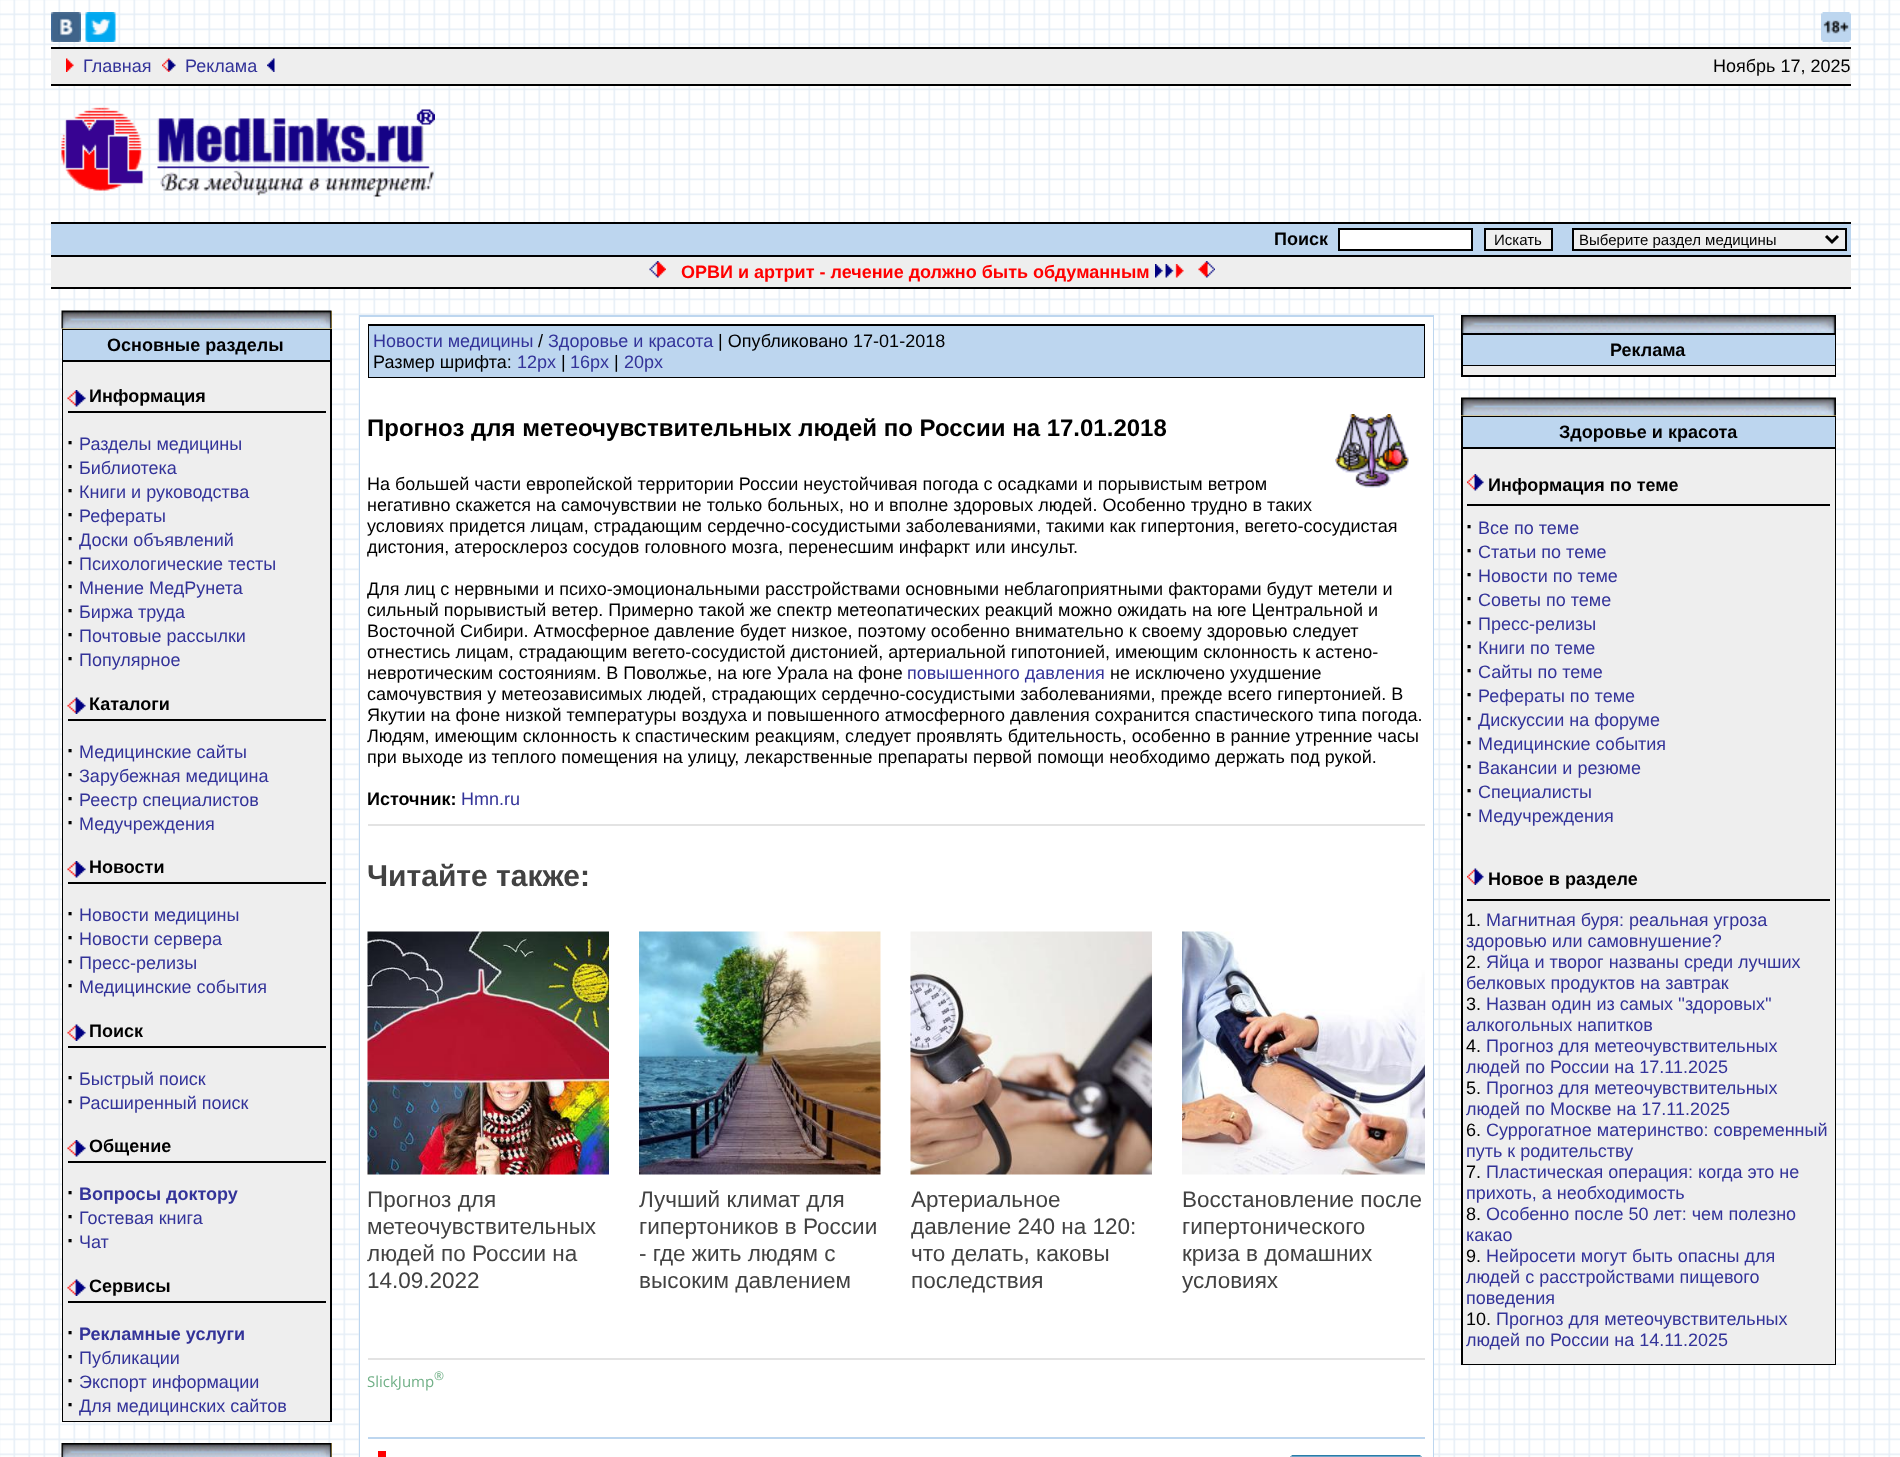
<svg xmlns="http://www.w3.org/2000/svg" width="1900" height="1457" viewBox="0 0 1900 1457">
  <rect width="100%" height="100%" fill="#fff"/>
  <image x="0" y="0" width="1900" height="1457" href="img/1.png"/>
  <image x="51" y="12" width="30" height="30" href="img/2.png"/>
  <image x="85" y="12" width="31" height="30" href="img/3.png"/>
  <image x="1821" y="12" width="30" height="30" href="img/4.png"/>
  <path d="M51 49h1800v35H51z" fill="#eee"/>
  <path d="M51 47h1800v2H51z" fill="#000"/>
  <image x="66" y="58" width="8" height="14" href="img/5.png"/>
  <image x="162" y="58" width="14" height="14" href="img/6.png"/>
  <image x="267" y="58" width="8" height="14" href="img/7.png"/>
  <path d="M51 84h1800v2H51z" fill="#000"/>
  <image x="61" y="107" width="374" height="90" href="img/8.png"/>
  <path d="M51 222h1800v2H51z" fill="#000"/>
  <path d="M51 224h1800v31H51z" fill="#bdd6ef"/>
  <path d="M1339 229h133v21H1339z" fill="#fff" stroke="#000" stroke-width="2"/>
  <path d="M1485 229h67v21H1485z" fill="#efefef" stroke="#000" stroke-width="2"/>
  <path d="M1573 229h273v21H1573z" fill="#efefef" stroke="#000" stroke-width="2"/>
  <path d="M1826 236L1832 242L1838 236" fill="none" stroke="#000" stroke-width="3"/>
  <path d="M51 255h1800v2H51z" fill="#000"/>
  <path d="M51 257h1800v30H51z" fill="#eee"/>
  <image x="649" y="261" width="17" height="17" href="img/9.png"/>
  <image x="1155" y="264" width="29" height="14" href="img/10.png"/>
  <image x="1198" y="261" width="17" height="17" href="img/11.png"/>
  <path d="M51 287h1800v2H51z" fill="#000"/>
  <path d="M62 311h270v18H62z" fill="#efce6b"/>
  <image x="61" y="310" width="271" height="19" href="img/12.png"/>
  <path d="M62 329h270v1093H62z" fill="#000"/>
  <path d="M63 330h267v30H63z" fill="#bdd6ef"/>
  <path d="M63 362h267v1059H63z" fill="#eee"/>
  <image x="67" y="390" width="19" height="17" href="img/13.png"/>
  <path d="M68 411h258v2H68z" fill="#000"/>
  <image x="67" y="697" width="19" height="17" href="img/14.png"/>
  <path d="M68 719h258v2H68z" fill="#000"/>
  <image x="67" y="861" width="19" height="17" href="img/13.png"/>
  <path d="M68 882h258v2H68z" fill="#000"/>
  <image x="67" y="1024" width="19" height="17" href="img/14.png"/>
  <path d="M68 1046h258v2H68z" fill="#000"/>
  <image x="67" y="1140" width="19" height="17" href="img/13.png"/>
  <path d="M68 1161h258v2H68z" fill="#000"/>
  <image x="67" y="1279" width="19" height="17" href="img/14.png"/>
  <path d="M68 1301h258v2H68z" fill="#000"/>
  <path d="M331 1443h1v14H331z" fill="#efce6b"/>
  <image x="61" y="1443" width="271" height="14" href="img/15.png"/>
  <path d="M359 315h1075v1142H359z" fill="#bdd6ef"/>
  <path d="M360 317h1073v1140H360z" fill="#fff"/>
  <path d="M368 324h1057v54H368z" fill="#000"/>
  <path d="M369 326h1055v51H369z" fill="#bdd6ef"/>
  <image x="1335" y="414" width="74" height="74" href="img/16.png"/>
  <path d="M368 824h1057v2H368z" fill="#e3e3e3"/>
  <path d="M368 1358h1057v2H368z" fill="#e3e3e3"/>
  <image x="367" y="931" width="242" height="244" href="img/17.png"/>
  <image x="639" y="931" width="242" height="244" href="img/18.png"/>
  <image x="910" y="931" width="242" height="244" href="img/19.png"/>
  <image x="1182" y="931" width="243" height="244" href="img/20.png"/>
  <path d="M368 1437h1057v2H368z" fill="#bdd6ef"/>
  <path d="M378 1451h8v6H378z" fill="#f00"/>
  <image x="1290" y="1455" width="132" height="2" href="img/21.png"/>
  <image x="1461" y="315" width="375" height="18" href="img/22.png"/>
  <path d="M1461 333h375v44H1461z" fill="#000"/>
  <path d="M1463 335h372v30H1463z" fill="#bdd6ef"/>
  <path d="M1463 366h372v9H1463z" fill="#eee"/>
  <path d="M1461 415h375v1H1461z" fill="#efce6b"/>
  <image x="1461" y="397" width="375" height="19" href="img/23.png"/>
  <path d="M1461 416h375v949H1461z" fill="#000"/>
  <path d="M1463 417h372v30H1463z" fill="#bdd6ef"/>
  <path d="M1463 449h372v915H1463z" fill="#eee"/>
  <image x="1467" y="474" width="17" height="17" href="img/24.png"/>
  <path d="M1467 504h363v2H1467z" fill="#000"/>
  <image x="1467" y="868" width="17" height="17" href="img/25.png"/>
  <path d="M1467 899h363v2H1467z" fill="#000"/>
  <g font-family="Liberation Sans" font-size="18" fill="#339">
    <text x="83" y="72">Главная</text>
    <text x="185" y="72">Реклама</text>
  </g>
  <text x="1713" y="72" font-family="Liberation Sans" font-size="18" fill="#000">Ноябрь 17, 2025</text>
  <text x="1274" y="245" font-family="Liberation Sans" font-size="18" font-weight="bold" fill="#000">Поиск</text>
  <g font-family="Liberation Sans" font-size="15" fill="#000">
    <text x="1494" y="245">Искать</text>
    <text x="1579" y="245">Выберите раздел медицины</text>
  </g>
  <text x="681" y="278" font-family="Liberation Sans" font-size="18" font-weight="bold" fill="#f00">ОРВИ и артрит - лечение должно быть обдуманным</text>
  <g font-family="Liberation Sans" font-size="18" font-weight="bold" fill="#000">
    <text x="107" y="351">Основные разделы</text>
    <text x="89" y="402">Информация</text>
  </g>
  <text x="67" y="450" font-family="Liberation Sans" font-size="22" font-weight="bold" fill="#000">·</text>
  <text x="79" y="450" font-family="Liberation Sans" font-size="18" fill="#339">Разделы медицины</text>
  <text x="67" y="474" font-family="Liberation Sans" font-size="22" font-weight="bold" fill="#000">·</text>
  <text x="79" y="474" font-family="Liberation Sans" font-size="18" fill="#339">Библиотека</text>
  <text x="67" y="498" font-family="Liberation Sans" font-size="22" font-weight="bold" fill="#000">·</text>
  <text x="79" y="498" font-family="Liberation Sans" font-size="18" fill="#339">Книги и руководства</text>
  <text x="67" y="522" font-family="Liberation Sans" font-size="22" font-weight="bold" fill="#000">·</text>
  <text x="79" y="522" font-family="Liberation Sans" font-size="18" fill="#339">Рефераты</text>
  <text x="67" y="546" font-family="Liberation Sans" font-size="22" font-weight="bold" fill="#000">·</text>
  <text x="79" y="546" font-family="Liberation Sans" font-size="18" fill="#339">Доски объявлений</text>
  <text x="67" y="570" font-family="Liberation Sans" font-size="22" font-weight="bold" fill="#000">·</text>
  <text x="79" y="570" font-family="Liberation Sans" font-size="18" fill="#339">Психологические тесты</text>
  <text x="67" y="594" font-family="Liberation Sans" font-size="22" font-weight="bold" fill="#000">·</text>
  <text x="79" y="594" font-family="Liberation Sans" font-size="18" fill="#339">Мнение МедРунета</text>
  <text x="67" y="618" font-family="Liberation Sans" font-size="22" font-weight="bold" fill="#000">·</text>
  <text x="79" y="618" font-family="Liberation Sans" font-size="18" fill="#339">Биржа труда</text>
  <text x="67" y="642" font-family="Liberation Sans" font-size="22" font-weight="bold" fill="#000">·</text>
  <text x="79" y="642" font-family="Liberation Sans" font-size="18" fill="#339">Почтовые рассылки</text>
  <text x="67" y="666" font-family="Liberation Sans" font-size="22" font-weight="bold" fill="#000">·</text>
  <text x="79" y="666" font-family="Liberation Sans" font-size="18" fill="#339">Популярное</text>
  <text x="89" y="710" font-family="Liberation Sans" font-size="18" font-weight="bold" fill="#000">Каталоги</text>
  <text x="67" y="758" font-family="Liberation Sans" font-size="22" font-weight="bold" fill="#000">·</text>
  <text x="79" y="758" font-family="Liberation Sans" font-size="18" fill="#339">Медицинские сайты</text>
  <text x="67" y="782" font-family="Liberation Sans" font-size="22" font-weight="bold" fill="#000">·</text>
  <text x="79" y="782" font-family="Liberation Sans" font-size="18" fill="#339">Зарубежная медицина</text>
  <text x="67" y="806" font-family="Liberation Sans" font-size="22" font-weight="bold" fill="#000">·</text>
  <text x="79" y="806" font-family="Liberation Sans" font-size="18" fill="#339">Реестр специалистов</text>
  <text x="67" y="830" font-family="Liberation Sans" font-size="22" font-weight="bold" fill="#000">·</text>
  <text x="79" y="830" font-family="Liberation Sans" font-size="18" fill="#339">Медучреждения</text>
  <text x="89" y="873" font-family="Liberation Sans" font-size="18" font-weight="bold" fill="#000">Новости</text>
  <text x="67" y="921" font-family="Liberation Sans" font-size="22" font-weight="bold" fill="#000">·</text>
  <text x="79" y="921" font-family="Liberation Sans" font-size="18" fill="#339">Новости медицины</text>
  <text x="67" y="945" font-family="Liberation Sans" font-size="22" font-weight="bold" fill="#000">·</text>
  <text x="79" y="945" font-family="Liberation Sans" font-size="18" fill="#339">Новости сервера</text>
  <text x="67" y="969" font-family="Liberation Sans" font-size="22" font-weight="bold" fill="#000">·</text>
  <text x="79" y="969" font-family="Liberation Sans" font-size="18" fill="#339">Пресс-релизы</text>
  <text x="67" y="993" font-family="Liberation Sans" font-size="22" font-weight="bold" fill="#000">·</text>
  <text x="79" y="993" font-family="Liberation Sans" font-size="18" fill="#339">Медицинские события</text>
  <text x="89" y="1037" font-family="Liberation Sans" font-size="18" font-weight="bold" fill="#000">Поиск</text>
  <text x="67" y="1085" font-family="Liberation Sans" font-size="22" font-weight="bold" fill="#000">·</text>
  <text x="79" y="1085" font-family="Liberation Sans" font-size="18" fill="#339">Быстрый поиск</text>
  <text x="67" y="1109" font-family="Liberation Sans" font-size="22" font-weight="bold" fill="#000">·</text>
  <text x="79" y="1109" font-family="Liberation Sans" font-size="18" fill="#339">Расширенный поиск</text>
  <text x="89" y="1152" font-family="Liberation Sans" font-size="18" font-weight="bold" fill="#000">Общение</text>
  <text x="67" y="1200" font-family="Liberation Sans" font-size="22" font-weight="bold" fill="#000">·</text>
  <text x="79" y="1200" font-family="Liberation Sans" font-size="18" font-weight="bold" fill="#339">Вопросы доктору</text>
  <text x="67" y="1224" font-family="Liberation Sans" font-size="22" font-weight="bold" fill="#000">·</text>
  <text x="79" y="1224" font-family="Liberation Sans" font-size="18" fill="#339">Гостевая книга</text>
  <text x="67" y="1248" font-family="Liberation Sans" font-size="22" font-weight="bold" fill="#000">·</text>
  <text x="79" y="1248" font-family="Liberation Sans" font-size="18" fill="#339">Чат</text>
  <text x="89" y="1292" font-family="Liberation Sans" font-size="18" font-weight="bold" fill="#000">Сервисы</text>
  <text x="67" y="1340" font-family="Liberation Sans" font-size="22" font-weight="bold" fill="#000">·</text>
  <text x="79" y="1340" font-family="Liberation Sans" font-size="18" font-weight="bold" fill="#339">Рекламные услуги</text>
  <text x="67" y="1364" font-family="Liberation Sans" font-size="22" font-weight="bold" fill="#000">·</text>
  <text x="79" y="1364" font-family="Liberation Sans" font-size="18" fill="#339">Публикации</text>
  <text x="67" y="1388" font-family="Liberation Sans" font-size="22" font-weight="bold" fill="#000">·</text>
  <text x="79" y="1388" font-family="Liberation Sans" font-size="18" fill="#339">Экспорт информации</text>
  <text x="67" y="1412" font-family="Liberation Sans" font-size="22" font-weight="bold" fill="#000">·</text>
  <g font-family="Liberation Sans" font-size="18" fill="#339">
    <text x="79" y="1412">Для медицинских сайтов</text>
    <text x="373" y="347">Новости медицины</text>
  </g>
  <text x="538" y="347" font-family="Liberation Sans" font-size="18" fill="#000">/</text>
  <text x="548" y="347" font-family="Liberation Sans" font-size="18" fill="#339">Здоровье и красота</text>
  <g font-family="Liberation Sans" font-size="18" fill="#000">
    <text x="718" y="347">| Опубликовано 17-01-2018</text>
    <text x="373" y="368">Размер шрифта:</text>
  </g>
  <text x="517" y="368" font-family="Liberation Sans" font-size="18" fill="#339">12px</text>
  <text x="561" y="368" font-family="Liberation Sans" font-size="18" fill="#000">|</text>
  <text x="570" y="368" font-family="Liberation Sans" font-size="18" fill="#339">16px</text>
  <text x="614" y="368" font-family="Liberation Sans" font-size="18" fill="#000">|</text>
  <text x="624" y="368" font-family="Liberation Sans" font-size="18" fill="#339">20px</text>
  <text x="367" y="436" font-family="Liberation Sans" font-size="24" font-weight="bold" fill="#000">Прогноз для метеочувствительных людей по России на 17.01.2018</text>
  <g font-family="Liberation Sans" font-size="18" fill="#000">
    <text x="367" y="490">На большей части европейской территории России неустойчивая погода с осадками и порывистым ветром</text>
    <text x="367" y="511">негативно скажется на самочувствии не только больных, но и вполне здоровых людей. Особенно трудно в таких</text>
    <text x="367" y="532">условиях придется лицам, страдающим сердечно-сосудистыми заболеваниями, такими как гипертония, вегето-сосудистая</text>
    <text x="367" y="553">дистония, атеросклероз сосудов головного мозга, перенесшим инфаркт или инсульт.</text>
    <text x="367" y="595">Для лиц с нервными и психо-эмоциональными расстройствами основными неблагоприятными факторами будут метели и</text>
    <text x="367" y="616">сильный порывистый ветер. Примерно такой же спектр метеопатических реакций можно ожидать на юге Центральной и</text>
    <text x="367" y="637">Восточной Сибири. Атмосферное давление будет низкое, поэтому особенно внимательно к своему здоровью следует</text>
    <text x="367" y="658">отнестись лицам, страдающим вегето-сосудистой дистонией, артериальной гипотонией, имеющим склонность к астено-</text>
    <text x="367" y="679">невротическим состояниям. В Поволжье, на юге Урала на фоне</text>
  </g>
  <text x="907" y="679" font-family="Liberation Sans" font-size="18" fill="#339">повышенного давления</text>
  <g font-family="Liberation Sans" font-size="18" fill="#000">
    <text x="1110" y="679">не исключено ухудшение</text>
    <text x="367" y="700">самочувствия у метеозависимых людей, страдающих сердечно-сосудистыми заболеваниями, прежде всего гипертонией. В</text>
    <text x="367" y="721">Якутии на фоне низкой температуры воздуха и повышенного атмосферного давления сохранится спастического типа погода.</text>
    <text x="367" y="742">Людям, имеющим склонность к спастическим реакциям, следует проявлять бдительность, особенно в ранние утренние часы</text>
    <text x="367" y="763">при выходе из теплого помещения на улицу, лекарственные препараты первой помощи необходимо держать под рукой.</text>
  </g>
  <text x="367" y="805" font-family="Liberation Sans" font-size="18" font-weight="bold" fill="#000">Источник:</text>
  <text x="461" y="805" font-family="Liberation Sans" font-size="18" fill="#339">Hmn.ru</text>
  <text x="367" y="886" font-family="Liberation Sans" font-size="30" font-weight="bold" fill="#424242">Читайте также:</text>
  <g font-family="Liberation Sans" font-size="22.5" fill="#424242">
    <text x="367" y="1207">Прогноз для</text>
    <text x="367" y="1234">метеочувствительных</text>
    <text x="367" y="1261">людей по России на</text>
    <text x="367" y="1288">14.09.2022</text>
    <text x="639" y="1207">Лучший климат для</text>
    <text x="639" y="1234">гипертоников в России</text>
    <text x="639" y="1261">- где жить людям с</text>
    <text x="639" y="1288">высоким давлением</text>
    <text x="911" y="1207">Артериальное</text>
    <text x="911" y="1234">давление 240 на 120:</text>
    <text x="911" y="1261">что делать, каковы</text>
    <text x="911" y="1288">последствия</text>
    <text x="1182" y="1207">Восстановление после</text>
    <text x="1182" y="1234">гипертонического</text>
    <text x="1182" y="1261">криза в домашних</text>
    <text x="1182" y="1288">условиях</text>
  </g>
  <text x="367" y="1387" font-family="Open Sans" font-size="15" fill="#71b087">SlickJump</text>
  <text x="434" y="1380" font-family="Open Sans" font-size="12" fill="#71b087">®</text>
  <g font-family="Liberation Sans" font-size="18" font-weight="bold" fill="#000">
    <text x="1610" y="356">Реклама</text>
    <text x="1559" y="438">Здоровье и красота</text>
    <text x="1488" y="491">Информация по теме</text>
  </g>
  <text x="1466" y="534" font-family="Liberation Sans" font-size="22" font-weight="bold" fill="#000">·</text>
  <text x="1478" y="534" font-family="Liberation Sans" font-size="18" fill="#339">Все по теме</text>
  <text x="1466" y="558" font-family="Liberation Sans" font-size="22" font-weight="bold" fill="#000">·</text>
  <text x="1478" y="558" font-family="Liberation Sans" font-size="18" fill="#339">Статьи по теме</text>
  <text x="1466" y="582" font-family="Liberation Sans" font-size="22" font-weight="bold" fill="#000">·</text>
  <text x="1478" y="582" font-family="Liberation Sans" font-size="18" fill="#339">Новости по теме</text>
  <text x="1466" y="606" font-family="Liberation Sans" font-size="22" font-weight="bold" fill="#000">·</text>
  <text x="1478" y="606" font-family="Liberation Sans" font-size="18" fill="#339">Советы по теме</text>
  <text x="1466" y="630" font-family="Liberation Sans" font-size="22" font-weight="bold" fill="#000">·</text>
  <text x="1478" y="630" font-family="Liberation Sans" font-size="18" fill="#339">Пресс-релизы</text>
  <text x="1466" y="654" font-family="Liberation Sans" font-size="22" font-weight="bold" fill="#000">·</text>
  <text x="1478" y="654" font-family="Liberation Sans" font-size="18" fill="#339">Книги по теме</text>
  <text x="1466" y="678" font-family="Liberation Sans" font-size="22" font-weight="bold" fill="#000">·</text>
  <text x="1478" y="678" font-family="Liberation Sans" font-size="18" fill="#339">Сайты по теме</text>
  <text x="1466" y="702" font-family="Liberation Sans" font-size="22" font-weight="bold" fill="#000">·</text>
  <text x="1478" y="702" font-family="Liberation Sans" font-size="18" fill="#339">Рефераты по теме</text>
  <text x="1466" y="726" font-family="Liberation Sans" font-size="22" font-weight="bold" fill="#000">·</text>
  <text x="1478" y="726" font-family="Liberation Sans" font-size="18" fill="#339">Дискуссии на форуме</text>
  <text x="1466" y="750" font-family="Liberation Sans" font-size="22" font-weight="bold" fill="#000">·</text>
  <text x="1478" y="750" font-family="Liberation Sans" font-size="18" fill="#339">Медицинские события</text>
  <text x="1466" y="774" font-family="Liberation Sans" font-size="22" font-weight="bold" fill="#000">·</text>
  <text x="1478" y="774" font-family="Liberation Sans" font-size="18" fill="#339">Вакансии и резюме</text>
  <text x="1466" y="798" font-family="Liberation Sans" font-size="22" font-weight="bold" fill="#000">·</text>
  <text x="1478" y="798" font-family="Liberation Sans" font-size="18" fill="#339">Специалисты</text>
  <text x="1466" y="822" font-family="Liberation Sans" font-size="22" font-weight="bold" fill="#000">·</text>
  <text x="1478" y="822" font-family="Liberation Sans" font-size="18" fill="#339">Медучреждения</text>
  <text x="1488" y="885" font-family="Liberation Sans" font-size="18" font-weight="bold" fill="#000">Новое в разделе</text>
  <text x="1466" y="926" font-family="Liberation Sans" font-size="18" fill="#000">1.</text>
  <g font-family="Liberation Sans" font-size="18" fill="#339">
    <text x="1486" y="926">Магнитная буря: реальная угроза</text>
    <text x="1466" y="947">здоровью или самовнушение?</text>
  </g>
  <text x="1466" y="968" font-family="Liberation Sans" font-size="18" fill="#000">2.</text>
  <g font-family="Liberation Sans" font-size="18" fill="#339">
    <text x="1486" y="968">Яйца и творог названы среди лучших</text>
    <text x="1466" y="989">белковых продуктов на завтрак</text>
  </g>
  <text x="1466" y="1010" font-family="Liberation Sans" font-size="18" fill="#000">3.</text>
  <g font-family="Liberation Sans" font-size="18" fill="#339">
    <text x="1486" y="1010">Назван один из самых ''здоровых''</text>
    <text x="1466" y="1031">алкогольных напитков</text>
  </g>
  <text x="1466" y="1052" font-family="Liberation Sans" font-size="18" fill="#000">4.</text>
  <g font-family="Liberation Sans" font-size="18" fill="#339">
    <text x="1486" y="1052">Прогноз для метеочувствительных</text>
    <text x="1466" y="1073">людей по России на 17.11.2025</text>
  </g>
  <text x="1466" y="1094" font-family="Liberation Sans" font-size="18" fill="#000">5.</text>
  <g font-family="Liberation Sans" font-size="18" fill="#339">
    <text x="1486" y="1094">Прогноз для метеочувствительных</text>
    <text x="1466" y="1115">людей по Москве на 17.11.2025</text>
  </g>
  <text x="1466" y="1136" font-family="Liberation Sans" font-size="18" fill="#000">6.</text>
  <g font-family="Liberation Sans" font-size="18" fill="#339">
    <text x="1486" y="1136">Суррогатное материнство: современный</text>
    <text x="1466" y="1157">путь к родительству</text>
  </g>
  <text x="1466" y="1178" font-family="Liberation Sans" font-size="18" fill="#000">7.</text>
  <g font-family="Liberation Sans" font-size="18" fill="#339">
    <text x="1486" y="1178">Пластическая операция: когда это не</text>
    <text x="1466" y="1199">прихоть, а необходимость</text>
  </g>
  <text x="1466" y="1220" font-family="Liberation Sans" font-size="18" fill="#000">8.</text>
  <g font-family="Liberation Sans" font-size="18" fill="#339">
    <text x="1486" y="1220">Особенно после 50 лет: чем полезно</text>
    <text x="1466" y="1241">какао</text>
  </g>
  <text x="1466" y="1262" font-family="Liberation Sans" font-size="18" fill="#000">9.</text>
  <g font-family="Liberation Sans" font-size="18" fill="#339">
    <text x="1486" y="1262">Нейросети могут быть опасны для</text>
    <text x="1466" y="1283">людей с расстройствами пищевого</text>
    <text x="1466" y="1304">поведения</text>
  </g>
  <text x="1466" y="1325" font-family="Liberation Sans" font-size="18" fill="#000">10.</text>
  <g font-family="Liberation Sans" font-size="18" fill="#339">
    <text x="1496" y="1325">Прогноз для метеочувствительных</text>
    <text x="1466" y="1346">людей по России на 14.11.2025</text>
  </g>
</svg>
